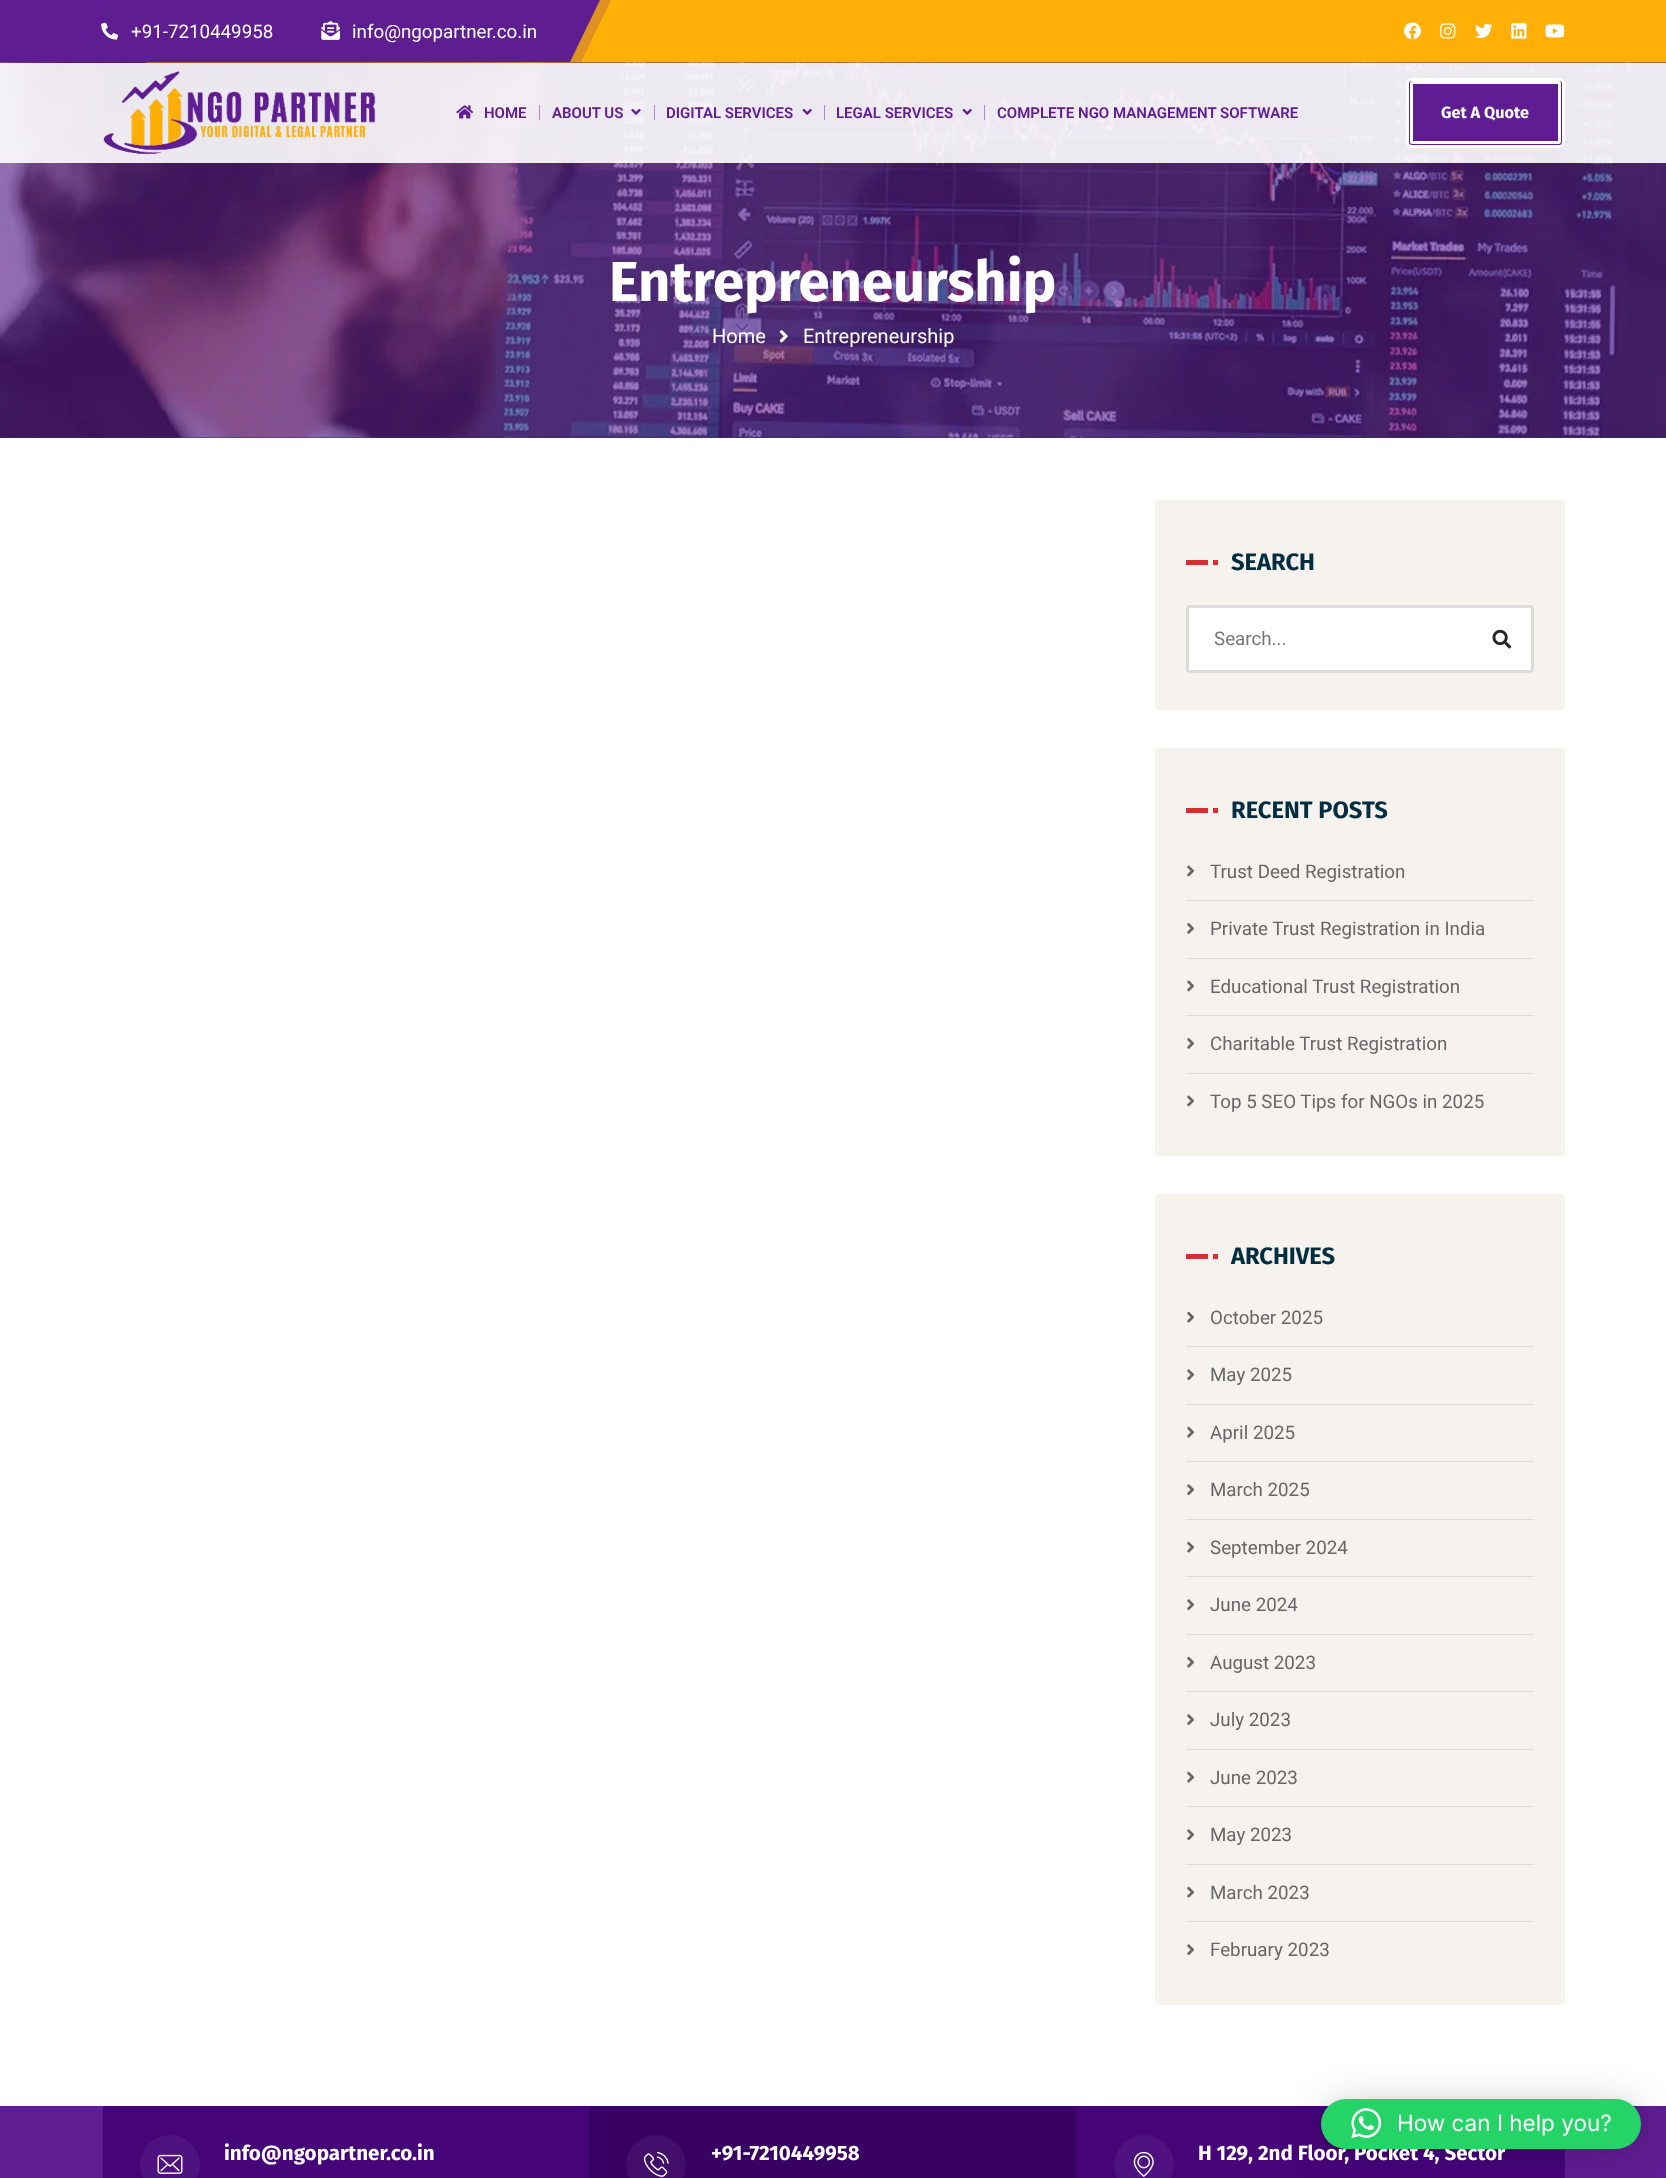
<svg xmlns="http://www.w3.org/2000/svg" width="1666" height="2178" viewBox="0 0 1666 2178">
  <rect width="100%" height="100%" fill="#fff"/>
  <path d="M146 0h1520v63H146z" fill="#ffaf06"/>
  <path d="M0 0h146v63H0z" fill="#601d93"/>
  <path d="M98 0H600L570 62H68Z" fill="#601d93"/>
  <path d="M110 0H611L581 62H79Z" fill="#601d9333"/>
  <image x="101" y="22" width="18" height="18" href="img/1.png"/>
  <image x="321" y="21" width="19" height="19" href="img/2.png"/>
  <image x="1404" y="22" width="17" height="18" href="img/3.png"/>
  <image x="1440" y="23" width="16" height="16" href="img/4.png"/>
  <image x="1475" y="23" width="18" height="16" href="img/5.png"/>
  <image x="1511" y="23" width="16" height="16" href="img/6.png"/>
  <image x="1545" y="24" width="20" height="14" href="img/7.png"/>
  <path d="M0 437h1666v1H0z" fill="#343a40"/>
  <image x="0" y="62" width="1666" height="376" href="img/12.png"/>
  <path d="M0 63h1666v100H0z" fill="#ffffffe6"/>
  <image x="103" y="71" width="273" height="84" href="img/8.png"/>
  <image x="456" y="105" width="18" height="14" href="img/9.png"/>
  <path d="M539 105h1v15H539z" fill="#b383e2"/>
  <image x="631" y="108" width="10" height="7" href="img/10.png"/>
  <path d="M654 105h1v15H654z" fill="#b383e2"/>
  <image x="802" y="108" width="10" height="7" href="img/11.png"/>
  <path d="M824 105h1v15H824z" fill="#b383e2"/>
  <image x="962" y="108" width="10" height="7" href="img/11.png"/>
  <path d="M984 105h1v15H984z" fill="#b383e2"/>
  <rect x="1407.5" y="79.5" width="156" height="67" rx="4.5" fill="#601d93" stroke="#fff" stroke-width="3"/>
  <rect x="1411.5" y="82.5" width="148" height="60" rx="1" fill="none" stroke="#fff" stroke-width="3"/>
  <image x="779" y="330" width="9" height="13" href="img/13.png"/>
  <rect x="1155" y="500" width="410" height="210" rx="4" fill="#f6f3ee"/>
  <path d="M1186 560h22v5H1186z" fill="#d83030"/>
  <path d="M1213 560h5v5H1213z" fill="#d83030"/>
  <rect x="1187.5" y="606.5" width="345" height="65" rx="2.5" fill="#fff" stroke="#dcdcdc" stroke-width="3"/>
  <image x="1492" y="629" width="20" height="20" href="img/14.png"/>
  <rect x="1155" y="748" width="410" height="408" rx="4" fill="#f6f3ee"/>
  <path d="M1186 808h22v5H1186z" fill="#d83030"/>
  <path d="M1213 808h5v5H1213z" fill="#d83030"/>
  <path d="M1186 900h348v1H1186z" fill="#dcdcdc"/>
  <image x="1187" y="865" width="8" height="12" href="img/15.png"/>
  <path d="M1186 958h348v1H1186z" fill="#dcdcdc"/>
  <image x="1187" y="923" width="8" height="11" href="img/16.png"/>
  <path d="M1186 1015h348v1H1186z" fill="#dcdcdc"/>
  <image x="1187" y="980" width="8" height="12" href="img/15.png"/>
  <path d="M1186 1073h348v1H1186z" fill="#dcdcdc"/>
  <image x="1187" y="1038" width="8" height="11" href="img/16.png"/>
  <image x="1187" y="1095" width="8" height="12" href="img/15.png"/>
  <rect x="1155" y="1194" width="410" height="811" rx="4" fill="#f6f3ee"/>
  <path d="M1186 1254h22v5H1186z" fill="#d83030"/>
  <path d="M1213 1254h5v5H1213z" fill="#d83030"/>
  <path d="M1186 1346h348v1H1186z" fill="#dcdcdc"/>
  <image x="1187" y="1311" width="8" height="12" href="img/17.png"/>
  <path d="M1186 1404h348v1H1186z" fill="#dcdcdc"/>
  <image x="1187" y="1369" width="8" height="12" href="img/18.png"/>
  <path d="M1186 1461h348v1H1186z" fill="#dcdcdc"/>
  <image x="1187" y="1426" width="8" height="12" href="img/17.png"/>
  <path d="M1186 1519h348v1H1186z" fill="#dcdcdc"/>
  <image x="1187" y="1484" width="8" height="12" href="img/18.png"/>
  <path d="M1186 1576h348v1H1186z" fill="#dcdcdc"/>
  <image x="1187" y="1541" width="8" height="12" href="img/17.png"/>
  <path d="M1186 1634h348v1H1186z" fill="#dcdcdc"/>
  <image x="1187" y="1599" width="8" height="12" href="img/18.png"/>
  <path d="M1186 1691h348v1H1186z" fill="#dcdcdc"/>
  <image x="1187" y="1656" width="8" height="12" href="img/17.png"/>
  <path d="M1186 1749h348v1H1186z" fill="#dcdcdc"/>
  <image x="1187" y="1714" width="8" height="12" href="img/18.png"/>
  <path d="M1186 1806h348v1H1186z" fill="#dcdcdc"/>
  <image x="1187" y="1771" width="8" height="12" href="img/17.png"/>
  <path d="M1186 1864h348v1H1186z" fill="#dcdcdc"/>
  <image x="1187" y="1829" width="8" height="12" href="img/18.png"/>
  <path d="M1186 1921h348v1H1186z" fill="#dcdcdc"/>
  <image x="1187" y="1886" width="8" height="12" href="img/17.png"/>
  <image x="1187" y="1944" width="8" height="12" href="img/18.png"/>
  <path d="M0 2106h1666v72H0z" fill="#601d93"/>
  <path d="M103 2106h1462v72H103z" fill="#460479"/>
  <circle cx="170" cy="2165" r="30" fill="#4f1180"/>
  <image x="157" y="2154" width="26" height="20" href="img/19.png"/>
  <path d="M589 2106h487v72H589z" fill="#380063"/>
  <circle cx="656" cy="2165" r="30" fill="#420d6b"/>
  <image x="643" y="2151" width="26" height="26" href="img/20.png"/>
  <circle cx="1144" cy="2165" r="30" fill="#4f1180"/>
  <image x="1133" y="2151" width="21" height="26" href="img/21.png"/>
  <rect x="1321" y="2101" width="320" height="50" rx="25" fill="#00000029" filter="blur(20px)"/>
  <rect x="1321" y="2100" width="320" height="50" rx="25" fill="#0000000f" filter="blur(4px)"/>
  <g font-family="Roboto" font-size="18.75" fill="#fff">
    <text x="131" y="38">+91-7210449958</text>
    <text x="352" y="38">info@ngopartner.co.in</text>
  </g>
  <g font-family="Roboto" font-size="15" font-weight="600" fill="#601d93">
    <text x="484" y="118">HOME</text>
    <text x="552" y="118">ABOUT US</text>
    <text x="666" y="118">DIGITAL SERVICES</text>
    <text x="836" y="118">LEGAL SERVICES</text>
    <text x="997" y="118">COMPLETE NGO MANAGEMENT SOFTWARE</text>
  </g>
  <text x="1441" y="118" font-family="Fira Sans" font-size="16.25" font-weight="bold" fill="#fff">Get A Quote</text>
  <text x="609" y="301" font-family="Fira Sans" font-size="56.25" font-weight="bold" fill="#fff">Entrepreneurship</text>
  <g font-family="Roboto" font-size="20" fill="#fff">
    <text x="712" y="343">Home</text>
    <text x="803" y="343">Entrepreneurship</text>
  </g>
  <text x="1231" y="570" font-family="Fira Sans" font-size="23.75" font-weight="bold" fill="#032e42">SEARCH</text>
  <text x="1214" y="645" font-family="Roboto" font-size="18.75" fill="#757575">Search...</text>
  <text x="1231" y="818" font-family="Fira Sans" font-size="23.75" font-weight="bold" fill="#032e42">RECENT POSTS</text>
  <g font-family="Roboto" font-size="18.75" fill="#676767">
    <text x="1210" y="878">Trust Deed Registration</text>
    <text x="1210" y="935">Private Trust Registration in India</text>
    <text x="1210" y="993">Educational Trust Registration</text>
    <text x="1210" y="1050">Charitable Trust Registration</text>
    <text x="1210" y="1108">Top 5 SEO Tips for NGOs in 2025</text>
  </g>
  <text x="1231" y="1264" font-family="Fira Sans" font-size="23.75" font-weight="bold" fill="#032e42">ARCHIVES</text>
  <g font-family="Roboto" font-size="18.75" fill="#676767">
    <text x="1210" y="1324">October 2025</text>
    <text x="1210" y="1381">May 2025</text>
    <text x="1210" y="1439">April 2025</text>
    <text x="1210" y="1496">March 2025</text>
    <text x="1210" y="1554">September 2024</text>
    <text x="1210" y="1611">June 2024</text>
    <text x="1210" y="1669">August 2023</text>
    <text x="1210" y="1726">July 2023</text>
    <text x="1210" y="1784">June 2023</text>
    <text x="1210" y="1841">May 2023</text>
    <text x="1210" y="1899">March 2023</text>
    <text x="1210" y="1956">February 2023</text>
  </g>
  <g font-family="Fira Sans" font-size="20.6" font-weight="bold" fill="#fff">
    <text x="224" y="2160">info@ngopartner.co.in</text>
    <text x="711" y="2160">+91-7210449958</text>
    <text x="1198" y="2160">H 129, 2nd Floor, Pocket 4, Sector</text>
  </g>
  <rect x="1321" y="2099" width="320" height="50" rx="25" fill="#25d366"/>
  <image x="1351" y="2108" width="31" height="31" href="img/22.png"/>
  <text x="1397" y="2131" font-family="Inter" font-size="22.5" fill="#fff">How can I help you?</text>
</svg>
